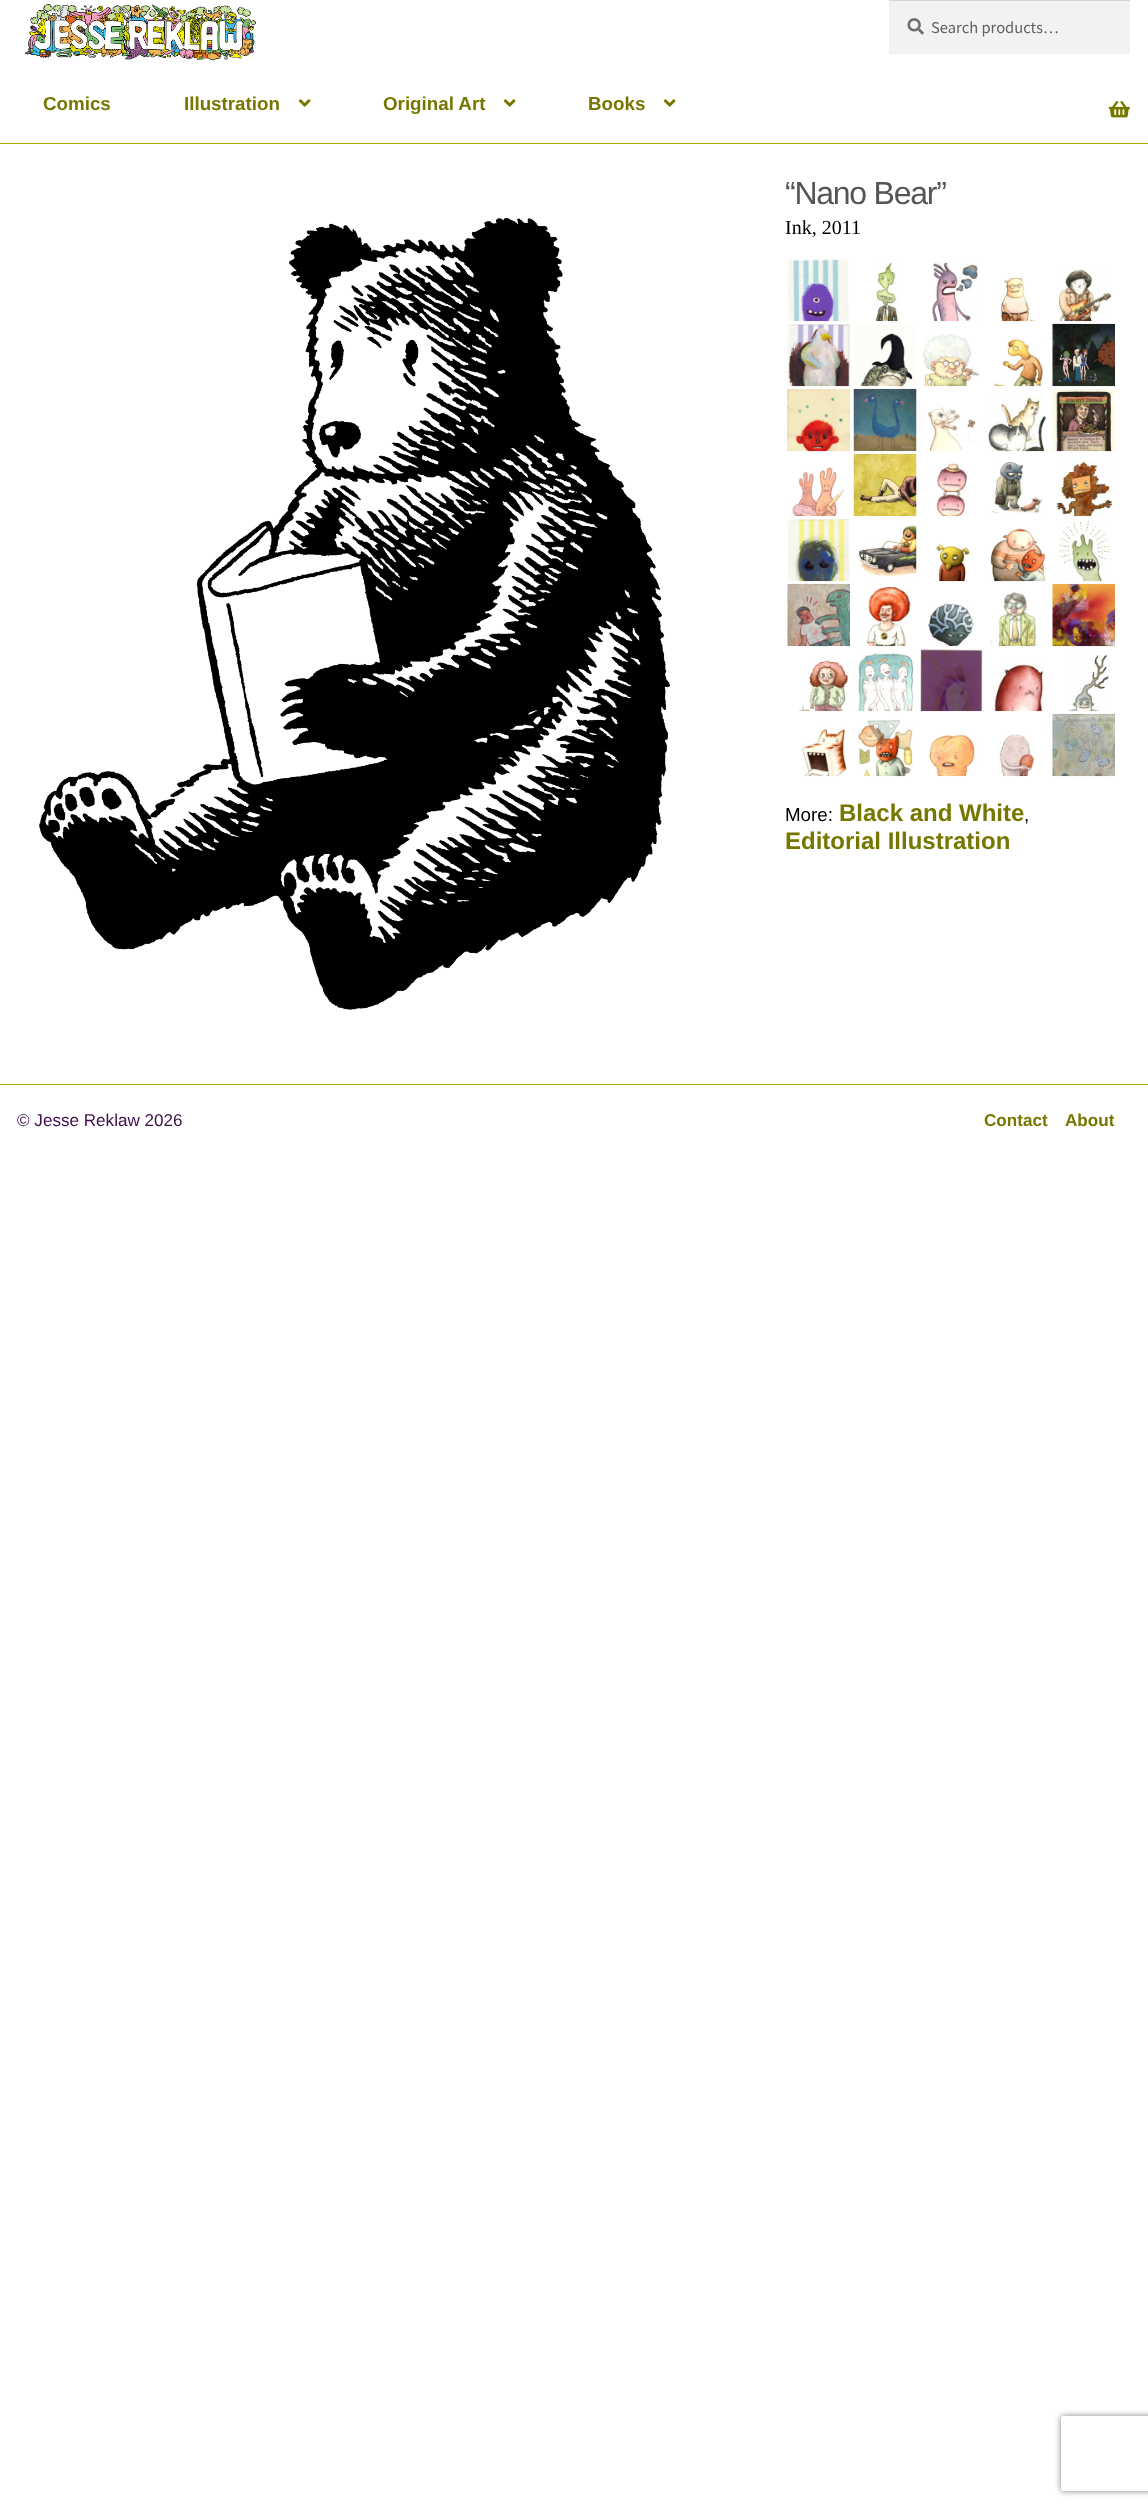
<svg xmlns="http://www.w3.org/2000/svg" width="1148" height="2508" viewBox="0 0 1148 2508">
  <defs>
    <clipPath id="clip1"><path d="M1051 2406H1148V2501H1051ZM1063.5 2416H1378.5C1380 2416 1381 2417 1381 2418.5V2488.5C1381 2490 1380 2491 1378.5 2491H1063.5C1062 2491 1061 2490 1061 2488.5V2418.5C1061 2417 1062 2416 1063.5 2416Z" clip-rule="evenodd"/></clipPath>
  </defs>
  <rect width="100%" height="100%" fill="#fff"/>
  <path d="M0 143h1148v1H0z" fill="#aa0"/>
  <image x="24" y="4" width="232" height="57" href="img/1.png"/>
  <path d="M889 1h241v53H889z" fill="#f2f2f2"/>
  <image x="907" y="18" width="17" height="17" href="img/2.png"/>
  <path d="M889 0h241v1H889z" fill="#d4d4d4"/>
  <image x="298" y="99" width="13" height="8" href="img/3.png"/>
  <image x="503" y="99" width="13" height="8" href="img/3.png"/>
  <image x="663" y="99" width="13" height="8" href="img/3.png"/>
  <image x="1108" y="101" width="22" height="17" href="img/4.png"/>
  <image x="39" y="218" width="631" height="792" href="img/5.png"/>
  <image x="787" y="259" width="62" height="63" href="img/6.png"/>
  <image x="875" y="262" width="24" height="60" href="img/7.png"/>
  <image x="932" y="262" width="46" height="60" href="img/8.png"/>
  <image x="1000" y="276" width="39" height="46" href="img/9.png"/>
  <image x="1057" y="267" width="55" height="55" href="img/10.png"/>
  <image x="787" y="324" width="63" height="63" href="img/11.png"/>
  <image x="854" y="324" width="62" height="63" href="img/12.png"/>
  <image x="923" y="334" width="57" height="53" href="img/13.png"/>
  <image x="993" y="337" width="50" height="50" href="img/14.png"/>
  <image x="1052" y="323" width="63" height="64" href="img/15.png"/>
  <image x="787" y="388" width="63" height="64" href="img/16.png"/>
  <image x="853" y="388" width="64" height="64" href="img/17.png"/>
  <image x="927" y="407" width="52" height="45" href="img/18.png"/>
  <image x="987" y="395" width="60" height="57" href="img/19.png"/>
  <image x="1052" y="389" width="63" height="63" href="img/20.png"/>
  <image x="791" y="467" width="53" height="50" href="img/21.png"/>
  <image x="853" y="453" width="64" height="64" href="img/22.png"/>
  <image x="936" y="463" width="31" height="54" href="img/23.png"/>
  <image x="991" y="461" width="52" height="53" href="img/24.png"/>
  <image x="1056" y="460" width="57" height="57" href="img/25.png"/>
  <image x="787" y="519" width="63" height="63" href="img/26.png"/>
  <image x="858" y="524" width="59" height="55" href="img/27.png"/>
  <image x="935" y="542" width="35" height="40" href="img/28.png"/>
  <image x="990" y="528" width="56" height="54" href="img/29.png"/>
  <image x="1059" y="519" width="53" height="63" href="img/30.png"/>
  <image x="787" y="583" width="63" height="64" href="img/31.png"/>
  <image x="867" y="586" width="44" height="61" href="img/32.png"/>
  <image x="928" y="603" width="46" height="44" href="img/33.png"/>
  <image x="990" y="591" width="47" height="56" href="img/34.png"/>
  <image x="1052" y="583" width="63" height="64" href="img/35.png"/>
  <image x="799" y="659" width="50" height="53" href="img/36.png"/>
  <image x="858" y="652" width="56" height="60" href="img/37.png"/>
  <image x="920" y="649" width="63" height="63" href="img/38.png"/>
  <image x="993" y="662" width="52" height="50" href="img/39.png"/>
  <image x="1067" y="654" width="43" height="58" href="img/40.png"/>
  <image x="801" y="727" width="46" height="50" href="img/41.png"/>
  <image x="857" y="719" width="57" height="58" href="img/42.png"/>
  <image x="928" y="734" width="49" height="43" href="img/43.png"/>
  <image x="999" y="734" width="37" height="43" href="img/44.png"/>
  <image x="1052" y="713" width="63" height="64" href="img/45.png"/>
  <path d="M0 1084h1148v1H0z" fill="#aa0"/>
  <g clip-path="url(#clip1)">
    <rect x="1061" y="2416" width="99" height="75" rx="2.5" fill="#808080" filter="blur(3px)"/>
  </g>
  <text x="931" y="33" font-family="Source Sans Pro" font-size="16.5" fill="#616161">Search products…</text>
  <g font-family="Liberation Sans" font-size="18.75" font-weight="bold" fill="#770">
    <text x="43" y="110">Comics</text>
    <text x="184" y="110">Illustration</text>
    <text x="383" y="110">Original Art</text>
    <text x="588" y="110">Books</text>
  </g>
  <text x="785" y="204" font-family="Liberation Sans" font-size="32" letter-spacing="-1.25" fill="#555">“Nano Bear”</text>
  <text x="785" y="234" font-family="Liberation Serif" font-size="20" fill="#000">Ink, 2011</text>
  <text x="785" y="821" font-family="Liberation Sans" font-size="18.75" fill="#000">More:</text>
  <text x="839" y="821" font-family="Liberation Sans" font-size="24" font-weight="bold" fill="#770">Black and White</text>
  <text x="1024" y="821" font-family="Liberation Sans" font-size="18.75" fill="#000">,</text>
  <text x="785" y="849" font-family="Liberation Sans" font-size="24" font-weight="bold" fill="#770">Editorial Illustration</text>
  <text x="17" y="1126" font-family="Liberation Sans" font-size="17.1" fill="#3e0f48">© Jesse Reklaw 2026</text>
  <g font-family="Liberation Sans" font-size="17.1" font-weight="bold" fill="#770">
    <text x="984" y="1126">Contact</text>
    <text x="1065" y="1126">About</text>
  </g>
</svg>
